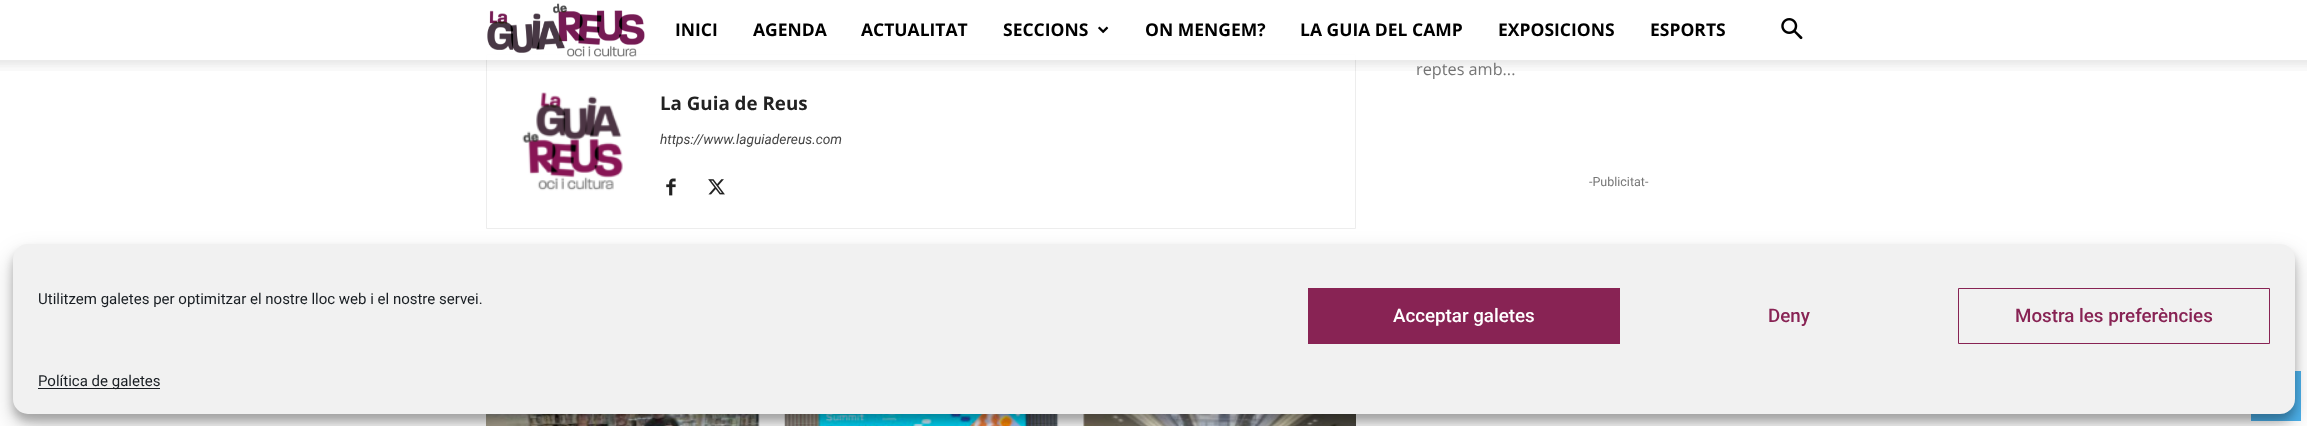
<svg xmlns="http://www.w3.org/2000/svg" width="2307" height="426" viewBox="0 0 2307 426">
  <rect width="100%" height="100%" fill="#fff"/>
  <path d="M486.5 54.5h869v174H486.5z" fill="none" stroke="#ededed"/>
  <path d="M486 54h870v6H486z" fill="#fffffff2"/>
  <image x="487" y="3" width="158" height="54" href="img/1.png"/>
  <image x="1098" y="26" width="11" height="8" href="img/2.png"/>
  <image x="1781" y="18" width="22" height="22" href="img/3.png"/>
  <image x="522" y="92" width="101" height="99" href="img/5.png"/>
  <image x="666" y="178" width="10" height="18" href="img/6.png"/>
  <image x="708" y="179" width="17" height="16" href="img/7.png"/>
  <image x="486" y="414" width="274" height="12" href="img/8.png"/>
  <image x="784" y="414" width="275" height="12" href="img/9.png"/>
  <image x="1083" y="414" width="273" height="12" href="img/10.png"/>
  <path d="M2251 371h50v50H2251z" fill="#4db2ec"/>
  <rect x="13" y="251" width="2282" height="170" rx="15" fill="#0000003b" filter="blur(4px)"/>
  <rect x="13" y="256" width="2282" height="170" rx="15" fill="#00000030" filter="blur(12.5px)"/>
  <rect x="13" y="244" width="2282" height="170" rx="15" fill="#f1f1f1"/>
  <path d="M1308 288h312v56H1308z" fill="#882354"/>
  <path d="M1958.5 288.5h311v55H1958.5z" fill="none" stroke="#882354"/>
  <path d="M38 388h122v1H38z" fill="#191e23"/>
  <g font-family="Open Sans" font-size="17.5" font-weight="bold" fill="#000">
    <text x="675" y="36">INICI</text>
    <text x="753" y="36">AGENDA</text>
    <text x="861" y="36">ACTUALITAT</text>
    <text x="1003" y="36">SECCIONS</text>
    <text x="1145" y="36">ON MENGEM?</text>
    <text x="1300" y="36">LA GUIA DEL CAMP</text>
    <text x="1498" y="36">EXPOSICIONS</text>
    <text x="1650" y="36">ESPORTS</text>
  </g>
  <text x="660" y="110" font-family="Open Sans" font-size="18.75" font-weight="bold" fill="#222">La Guia de Reus</text>
  <text x="660" y="144" font-family="Roboto" font-size="13.75" font-style="italic" fill="#444">https://www.laguiadereus.com</text>
  <text x="1416" y="75" font-family="Open Sans" font-size="16.25" fill="#767676">reptes amb...</text>
  <image x="0" y="60" width="2307" height="11" href="img/4.png"/>
  <text x="1589" y="186" font-family="Roboto" font-size="12.5" fill="#767676">-Publicitat-</text>
  <text x="38" y="304" font-family="Roboto" font-size="15" fill="#191e23">Utilitzem galetes per optimitzar el nostre lloc web i el nostre servei.</text>
  <text x="1393" y="322" font-family="Roboto" font-size="18.75" font-weight="500" fill="#fff">Acceptar galetes</text>
  <g font-family="Roboto" font-size="18.75" font-weight="500" fill="#882354">
    <text x="1768" y="322">Deny</text>
    <text x="2015" y="322">Mostra les preferències</text>
  </g>
  <text x="38" y="386" font-family="Roboto" font-size="15" fill="#191e23">Política de galetes</text>
</svg>
